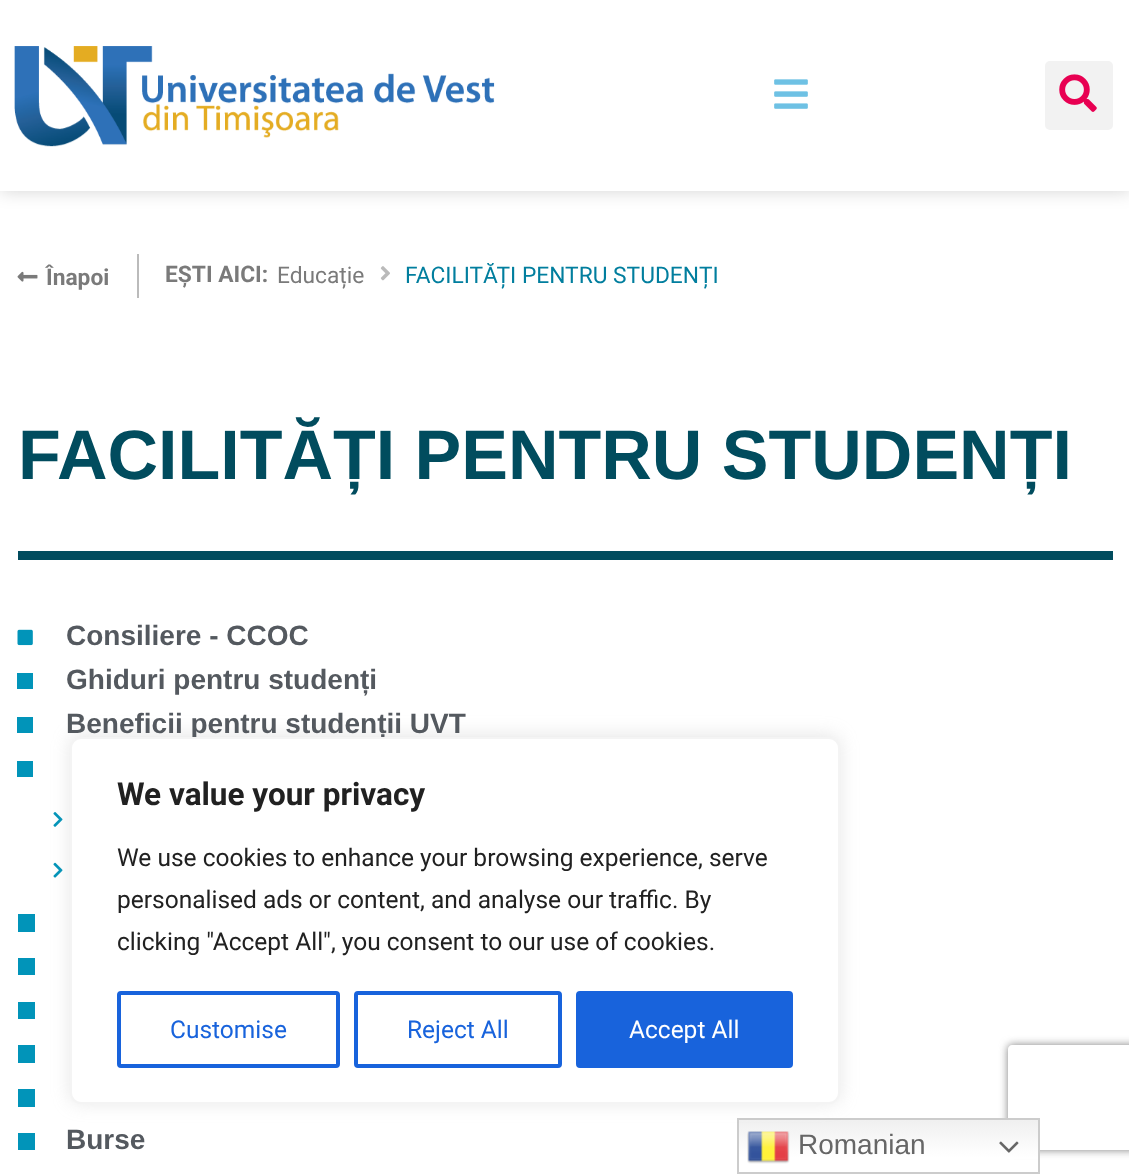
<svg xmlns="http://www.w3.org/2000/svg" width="1129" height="1174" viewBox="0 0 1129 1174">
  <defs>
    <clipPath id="clip1"><path d="M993 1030H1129V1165H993ZM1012 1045H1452C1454 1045 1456 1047 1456 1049V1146C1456 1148 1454 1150 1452 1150H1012C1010 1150 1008 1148 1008 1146V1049C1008 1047 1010 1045 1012 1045Z" clip-rule="evenodd"/></clipPath>
    <linearGradient id="g1" gradientUnits="userSpaceOnUse" x1="888" y1="1118" x2="888" y2="1174"><stop offset="0" stop-color="#efefef"/><stop offset="0.7" stop-color="#fff"/></linearGradient>
  </defs>
  <rect width="100%" height="100%" fill="#fff"/>
  <path d="M0 0h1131v191H0z" fill="#0000002b" filter="blur(9px)"/>
  <path d="M0 0h1129v191H0z" fill="#fff"/>
  <image x="14" y="46" width="481" height="101" href="img/1.png"/>
  <image x="774" y="79" width="34" height="30" href="img/2.png"/>
  <rect x="1045" y="61" width="68" height="69" rx="5" fill="#f2f2f2"/>
  <image x="1059" y="74" width="38" height="38" href="img/3.png"/>
  <path d="M137 254h2v44H137z" fill="#bbb"/>
  <image x="17" y="271" width="21" height="11" href="img/4.png"/>
  <image x="380" y="266" width="10" height="15" href="img/5.png"/>
  <path d="M18 551h1095v9H18z" fill="#014c5e"/>
  <image x="17" y="629" width="16" height="17" href="img/6.png"/>
  <path d="M17 673h16v16H17z" fill="#0194b9"/>
  <path d="M17 717h16v16H17z" fill="#0194b9"/>
  <path d="M17 761h16v16H17z" fill="#0194b9"/>
  <image x="53" y="812" width="10" height="15" href="img/7.png"/>
  <image x="53" y="862" width="10" height="16" href="img/8.png"/>
  <path d="M18 914h17v18H18z" fill="#0194b9"/>
  <path d="M18 958h17v17H18z" fill="#0194b9"/>
  <path d="M18 1002h17v17H18z" fill="#0194b9"/>
  <path d="M18 1045h17v18H18z" fill="#0194b9"/>
  <path d="M18 1089h17v18H18z" fill="#0194b9"/>
  <path d="M18 1133h17v17H18z" fill="#0194b9"/>
  <g clip-path="url(#clip1)">
    <rect x="1008" y="1045" width="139" height="105" rx="4" fill="#808080" filter="blur(4.5px)"/>
  </g>
  <path d="M739 1120h299v39H739z" fill="url(#g1)"/>
  <path d="M738 1119h301v54H738z" fill="none" stroke="#ccc" stroke-width="2"/>
  <rect x="70" y="735" width="770" height="368" rx="11" fill="#acabab4d" filter="blur(9px)"/>
  <image x="747" y="1131" width="43" height="33" href="img/9.png"/>
  <image x="999" y="1141" width="20" height="12" href="img/10.png"/>
  <g font-family="Roboto" font-size="22.75" font-weight="bold" fill="#7a7a7a">
    <text x="46" y="285">Înapoi</text>
    <text x="165" y="282">EȘTI AICI:</text>
  </g>
  <text x="277" y="283" font-family="Roboto" font-size="22.75" fill="#7a7a7a">Educație</text>
  <text x="405" y="283" font-family="Roboto" font-size="22.75" fill="#017e9e">FACILITĂȚI PENTRU STUDENȚI</text>
  <text x="18" y="479" font-family="Liberation Sans" font-size="70" font-weight="bold" fill="#014c5e">FACILITĂȚI PENTRU STUDENȚI</text>
  <g font-family="Liberation Sans" font-size="28" font-weight="bold" fill="#54595f">
    <text x="66" y="645">Consiliere - CCOC</text>
    <text x="66" y="689">Ghiduri pentru studenți</text>
    <text x="66" y="733">Beneficii pentru studenții UVT</text>
    <text x="66" y="1149">Burse</text>
  </g>
  <rect x="71" y="738" width="768" height="365" rx="10" fill="#fff" stroke="#f4f4f4" stroke-width="2"/>
  <text x="117" y="805" font-family="Roboto" font-size="31.5" font-weight="bold" fill="#212121">We value your privacy</text>
  <g font-family="Roboto" font-size="24.5" fill="#212121">
    <text x="117" y="866">We use cookies to enhance your browsing experience, serve</text>
    <text x="117" y="908">personalised ads or content, and analyse our traffic. By</text>
    <text x="117" y="950">clicking "Accept All", you consent to our use of cookies.</text>
  </g>
  <rect x="119" y="993" width="219" height="73" rx="2" fill="none" stroke="#1863dc" stroke-width="4"/>
  <text x="170" y="1038" font-family="Roboto" font-size="24.5" fill="#1863dc">Customise</text>
  <rect x="356" y="993" width="204" height="73" rx="2" fill="none" stroke="#1863dc" stroke-width="4"/>
  <text x="407" y="1038" font-family="Roboto" font-size="24.5" fill="#1863dc">Reject All</text>
  <rect x="578" y="993" width="213" height="73" rx="2" fill="#1863dc" stroke="#1863dc" stroke-width="4"/>
  <text x="629" y="1038" font-family="Roboto" font-size="24.5" fill="#fff">Accept All</text>
  <text x="798" y="1154" font-family="Liberation Sans" font-size="28" fill="#666">Romanian</text>
</svg>
